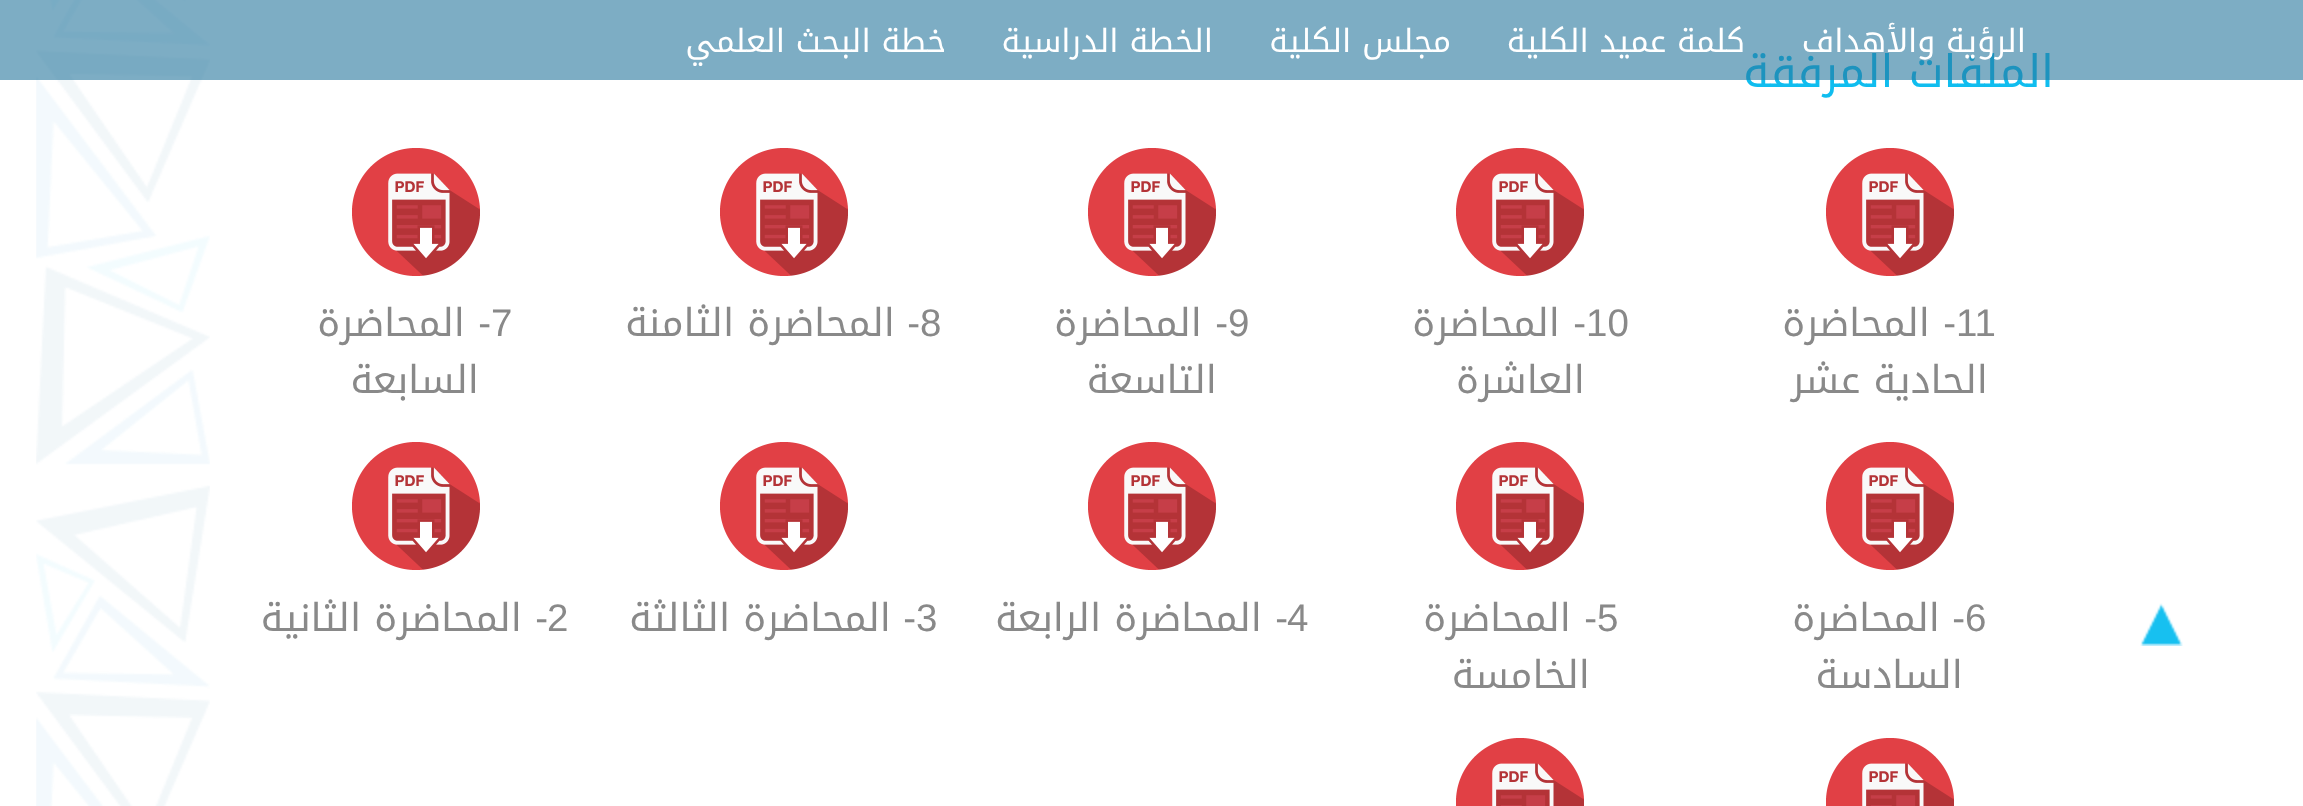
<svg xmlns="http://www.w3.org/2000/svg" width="2303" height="806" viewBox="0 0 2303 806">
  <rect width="100%" height="100%" fill="#fff"/>
  <image x="2140" y="603" width="43" height="43" href="img/1.png"/>
  <image x="36" y="0" width="174" height="806" href="img/2.png"/>
  <image x="1826" y="148" width="128" height="128" href="img/3.png"/>
  <image x="1456" y="148" width="128" height="128" href="img/3.png"/>
  <image x="1088" y="148" width="128" height="128" href="img/3.png"/>
  <image x="720" y="148" width="128" height="128" href="img/3.png"/>
  <image x="352" y="148" width="128" height="128" href="img/3.png"/>
  <image x="1826" y="442" width="128" height="128" href="img/3.png"/>
  <image x="1456" y="442" width="128" height="128" href="img/3.png"/>
  <image x="1088" y="442" width="128" height="128" href="img/3.png"/>
  <image x="720" y="442" width="128" height="128" href="img/3.png"/>
  <image x="352" y="442" width="128" height="128" href="img/3.png"/>
  <image x="1826" y="738" width="128" height="68" href="img/4.png"/>
  <image x="1456" y="738" width="128" height="68" href="img/4.png"/>
  <text x="2054" y="87" font-family="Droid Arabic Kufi" font-size="44.75" direction="rtl" fill="#10bdef">الملفات المرفقة</text>
  <path d="M0 0h2303v80H0z" fill="#26769d99"/>
  <g font-family="Droid Arabic Kufi" font-size="32" direction="rtl" fill="#fff">
    <text x="946" y="52">خطة البحث العلمي</text>
    <text x="1213" y="52">الخطة الدراسية</text>
    <text x="1451" y="52">مجلس الكلية</text>
    <text x="1745" y="52">كلمة عميد الكلية</text>
    <text x="2026" y="52">الرؤية والأهداف</text>
  </g>
  <text x="1956" y="336" font-family="Liberation Sans" font-size="38.5" fill="#898989">11</text>
  <text x="1956" y="336" font-family="Liberation Sans" font-size="38.5" direction="rtl" fill="#898989">-</text>
  <g font-family="Droid Arabic Kufi" font-size="38.5" direction="rtl" fill="#898989">
    <text x="1930" y="336">المحاضرة</text>
    <text x="1988" y="393">الحادية عشر</text>
  </g>
  <text x="1586" y="336" font-family="Liberation Sans" font-size="38.5" fill="#898989">10</text>
  <text x="1586" y="336" font-family="Liberation Sans" font-size="38.5" direction="rtl" fill="#898989">-</text>
  <g font-family="Droid Arabic Kufi" font-size="38.5" direction="rtl" fill="#898989">
    <text x="1560" y="336">المحاضرة</text>
    <text x="1585" y="393">العاشرة</text>
  </g>
  <text x="1228" y="336" font-family="Liberation Sans" font-size="38.5" fill="#898989">9</text>
  <text x="1228" y="336" font-family="Liberation Sans" font-size="38.5" direction="rtl" fill="#898989">-</text>
  <g font-family="Droid Arabic Kufi" font-size="38.5" direction="rtl" fill="#898989">
    <text x="1202" y="336">المحاضرة</text>
    <text x="1217" y="393">التاسعة</text>
  </g>
  <text x="920" y="336" font-family="Liberation Sans" font-size="38.5" fill="#898989">8</text>
  <text x="920" y="336" font-family="Liberation Sans" font-size="38.5" direction="rtl" fill="#898989">-</text>
  <text x="895" y="336" font-family="Droid Arabic Kufi" font-size="38.5" direction="rtl" fill="#898989">المحاضرة الثامنة</text>
  <text x="491" y="336" font-family="Liberation Sans" font-size="38.5" fill="#898989">7</text>
  <text x="491" y="336" font-family="Liberation Sans" font-size="38.5" direction="rtl" fill="#898989">-</text>
  <g font-family="Droid Arabic Kufi" font-size="38.5" direction="rtl" fill="#898989">
    <text x="465" y="336">المحاضرة</text>
    <text x="479" y="393">السابعة</text>
  </g>
  <text x="1965" y="631" font-family="Liberation Sans" font-size="38.5" fill="#898989">6</text>
  <text x="1965" y="631" font-family="Liberation Sans" font-size="38.5" direction="rtl" fill="#898989">-</text>
  <g font-family="Droid Arabic Kufi" font-size="38.5" direction="rtl" fill="#898989">
    <text x="1940" y="631">المحاضرة</text>
    <text x="1963" y="688">السادسة</text>
  </g>
  <text x="1597" y="631" font-family="Liberation Sans" font-size="38.5" fill="#898989">5</text>
  <text x="1597" y="631" font-family="Liberation Sans" font-size="38.5" direction="rtl" fill="#898989">-</text>
  <g font-family="Droid Arabic Kufi" font-size="38.5" direction="rtl" fill="#898989">
    <text x="1571" y="631">المحاضرة</text>
    <text x="1590" y="688">الخامسة</text>
  </g>
  <text x="1287" y="631" font-family="Liberation Sans" font-size="38.5" fill="#898989">4</text>
  <text x="1288" y="631" font-family="Liberation Sans" font-size="38.5" direction="rtl" fill="#898989">-</text>
  <text x="1262" y="631" font-family="Droid Arabic Kufi" font-size="38.5" direction="rtl" fill="#898989">المحاضرة الرابعة</text>
  <text x="916" y="631" font-family="Liberation Sans" font-size="38.5" fill="#898989">3</text>
  <text x="916" y="631" font-family="Liberation Sans" font-size="38.5" direction="rtl" fill="#898989">-</text>
  <text x="891" y="631" font-family="Droid Arabic Kufi" font-size="38.5" direction="rtl" fill="#898989">المحاضرة الثالثة</text>
  <text x="547" y="631" font-family="Liberation Sans" font-size="38.5" fill="#898989">2</text>
  <text x="548" y="631" font-family="Liberation Sans" font-size="38.5" direction="rtl" fill="#898989">-</text>
  <text x="522" y="631" font-family="Droid Arabic Kufi" font-size="38.5" direction="rtl" fill="#898989">المحاضرة الثانية</text>
</svg>
